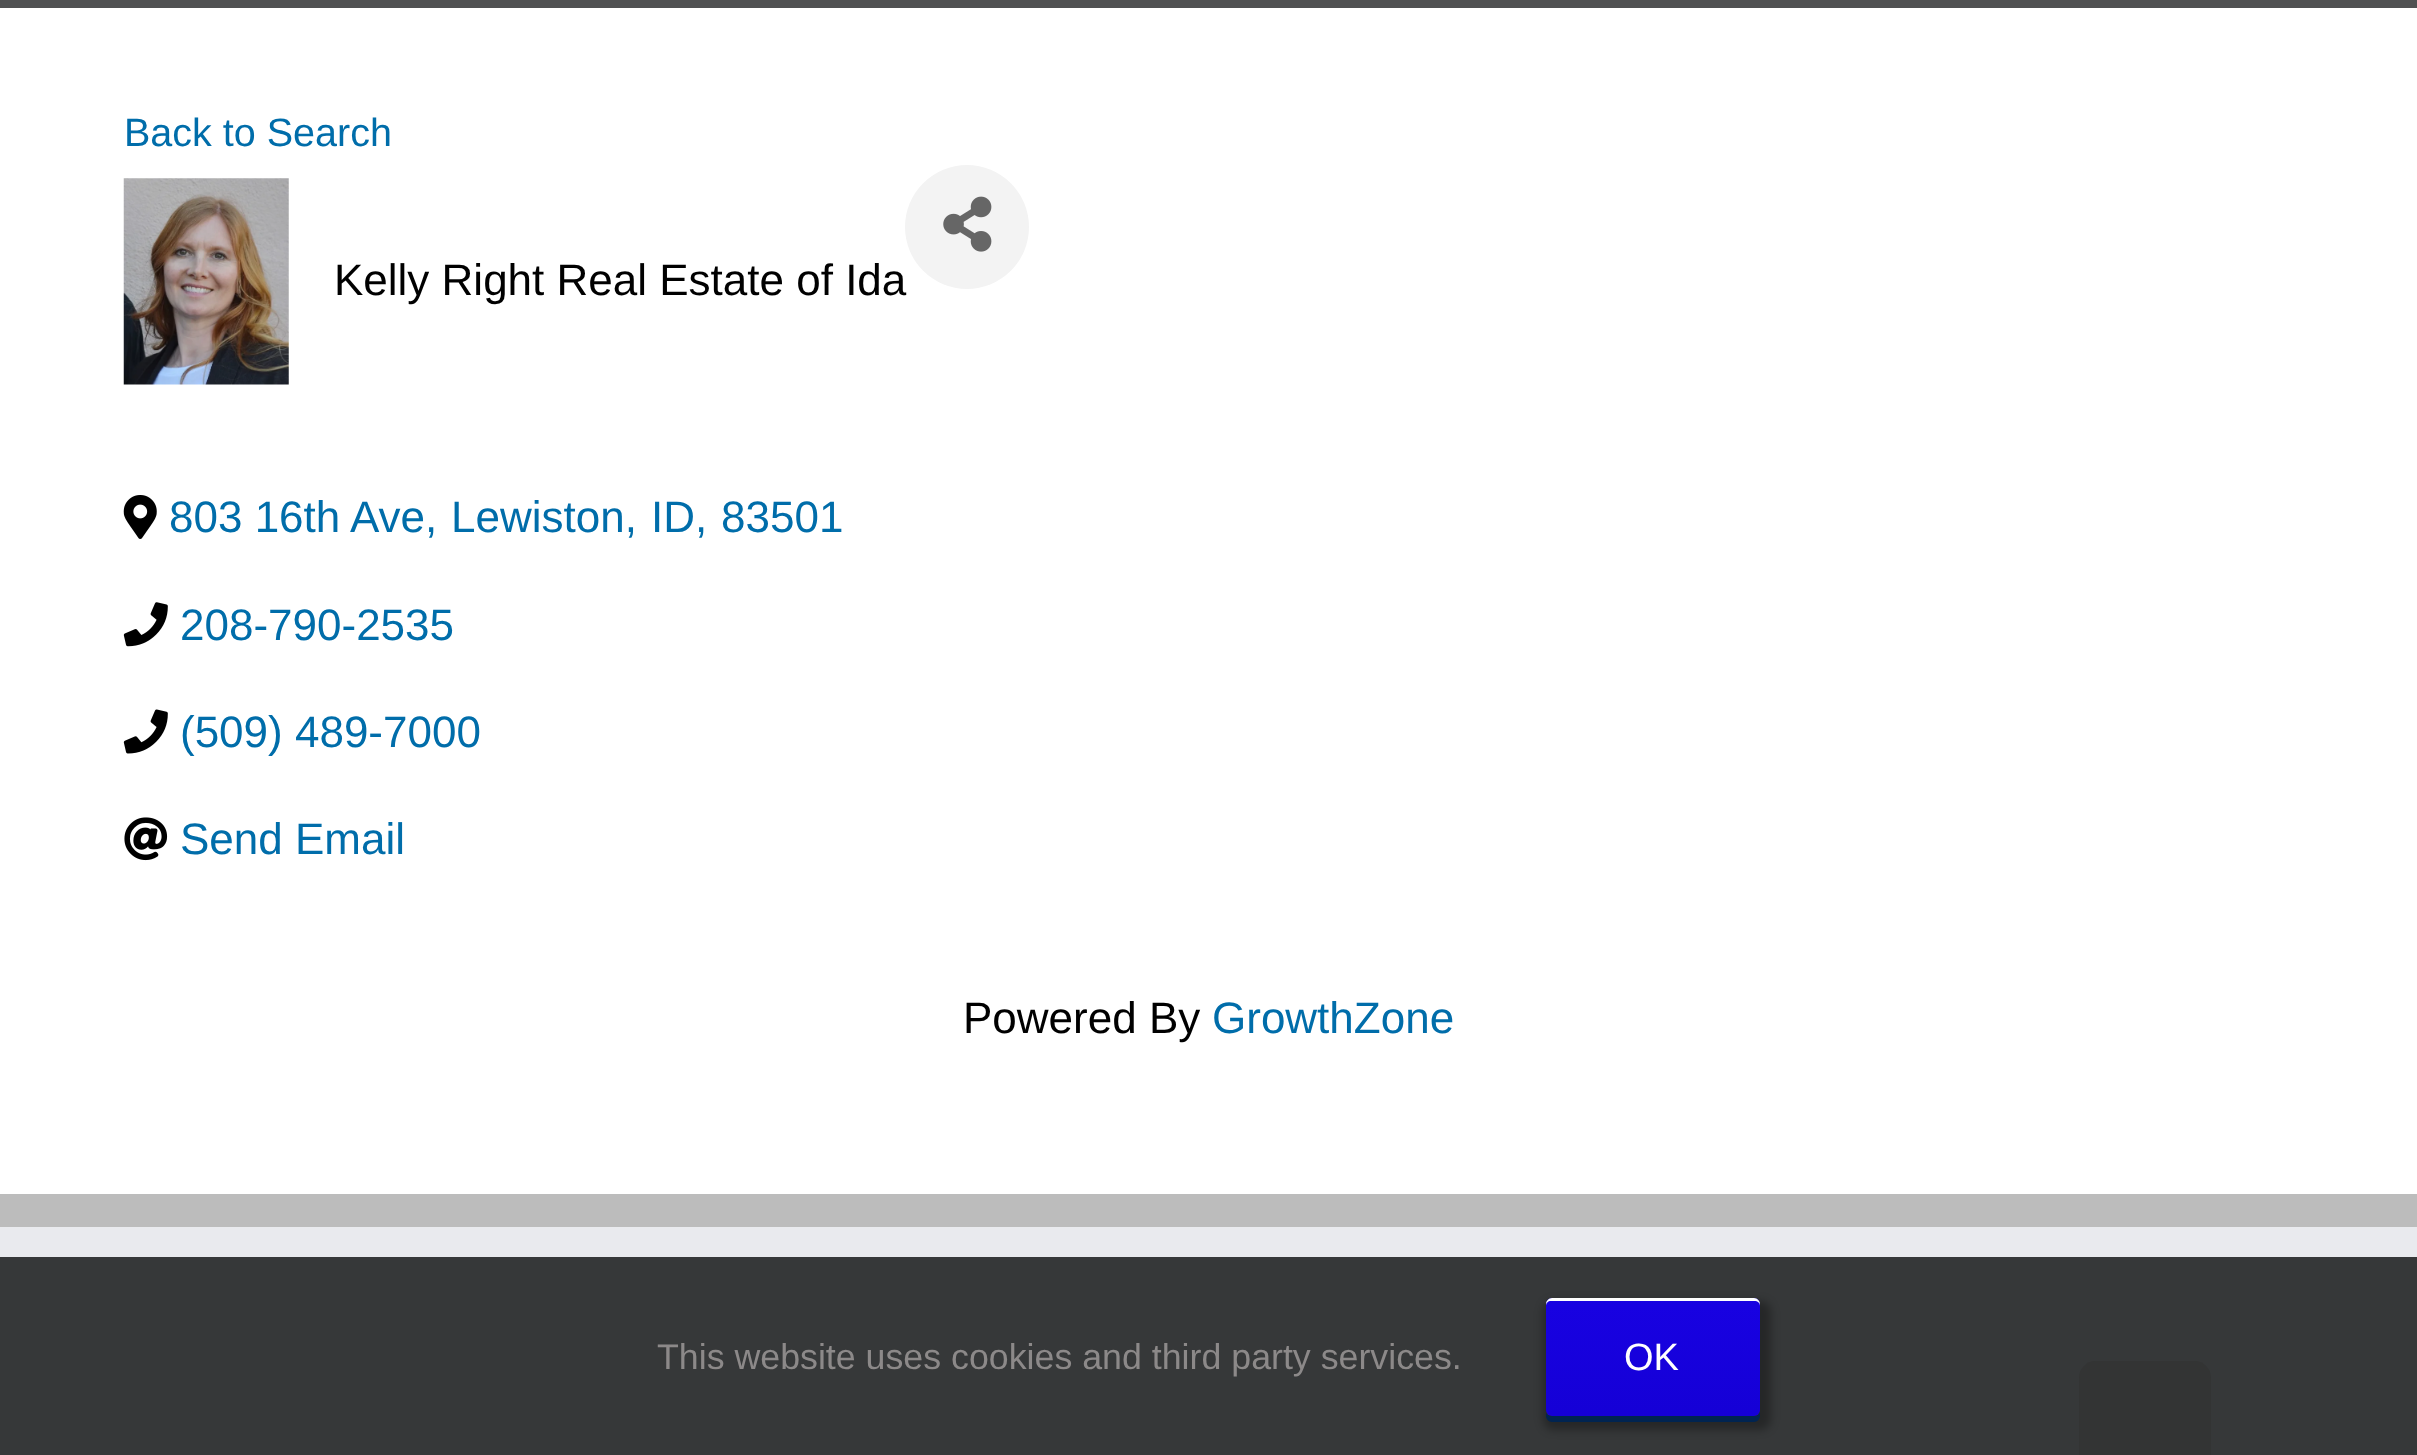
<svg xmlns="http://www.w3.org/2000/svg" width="2417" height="1455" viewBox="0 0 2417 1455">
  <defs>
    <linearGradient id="g1" gradientUnits="userSpaceOnUse" x1="1653" y1="1298" x2="1653" y2="1416"><stop offset="0" stop-color="#1802e2"/><stop offset="1" stop-color="#1500d6"/></linearGradient>
  </defs>
  <rect width="100%" height="100%" fill="#fff"/>
  <path d="M0 0h2417v8H0z" fill="#505152"/>
  <image x="123" y="178" width="166" height="207" href="img/1.png"/>
  <image x="123" y="495" width="34" height="44" href="img/3.png"/>
  <image x="123" y="602" width="45" height="45" href="img/4.png"/>
  <image x="123" y="709" width="45" height="45" href="img/5.png"/>
  <image x="124" y="817" width="44" height="44" href="img/6.png"/>
  <path d="M0 1227h2417v30H0z" fill="#e9eaee"/>
  <path d="M0 1194h2417v33H0z" fill="#bcbcbc"/>
  <path d="M0 1257h2417v198H0z" fill="#363839"/>
  <rect x="1543" y="1301" width="228" height="129" rx="11" fill="#0000004d" filter="blur(4px)"/>
  <path d="M1546 1413V1416C1546 1419 1549 1422 1552 1422H1754C1757 1422 1760 1419 1760 1416V1411C1760 1414 1758 1416 1754 1416H1551C1549 1416 1547 1415 1546 1413Z" fill="#002451"/>
  <rect x="1546" y="1298" width="214" height="118" rx="6" fill="url(#g1)"/>
  <path d="M1551 1301H1754C1758 1301 1760 1303 1760 1306V1304C1760 1301 1757 1298 1754 1298H1552C1549 1298 1546 1301 1546 1304V1306C1546 1303 1548 1301 1551 1301Z" fill="#fff"/>
  <path d="M2096 1361H2194C2203.5 1361 2211 1368.5 2211 1378V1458H2079V1378C2079 1368.5 2086.5 1361 2096 1361Z" fill="#333434"/>
  <text x="124" y="146" font-family="Liberation Sans" font-size="39.5" fill="#006daa">Back to Search</text>
  <text x="334" y="295" font-family="Liberation Sans" font-size="44" fill="#000">Kelly Right Real Estate of Ida</text>
  <circle cx="967" cy="227" r="62" fill="#f3f3f3"/>
  <image x="943" y="196" width="49" height="56" href="img/2.png"/>
  <g font-family="Liberation Sans" font-size="44" fill="#006daa">
    <text x="169" y="532">803 16th Ave,</text>
    <text x="451" y="532">Lewiston,</text>
    <text x="651" y="532">ID,</text>
    <text x="721" y="532">83501</text>
    <text x="180" y="640">208-790-2535</text>
    <text x="180" y="747">(509) 489-7000</text>
    <text x="180" y="854">Send Email</text>
  </g>
  <text x="963" y="1033" font-family="Liberation Sans" font-size="44" fill="#000">Powered By</text>
  <text x="1212" y="1033" font-family="Liberation Sans" font-size="44" fill="#006daa">GrowthZone</text>
  <text x="657" y="1369" font-family="Liberation Sans" font-size="35.75" fill="#8c8989">This website uses cookies and third party services.</text>
  <text x="1624" y="1370" font-family="Liberation Sans" font-size="38" fill="#fff">OK</text>
</svg>
